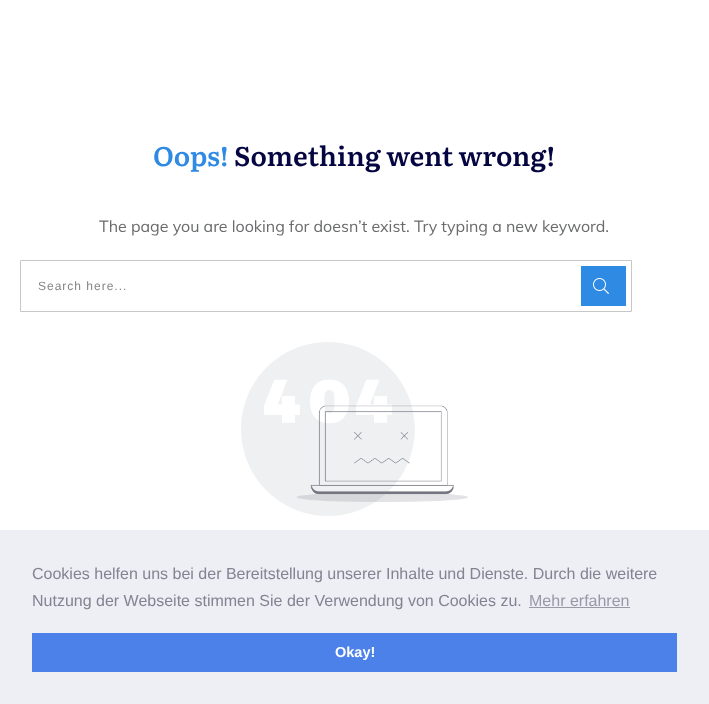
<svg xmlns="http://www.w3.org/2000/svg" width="709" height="704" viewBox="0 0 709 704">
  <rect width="100%" height="100%" fill="#fff"/>
  <path d="M20.5 260.5h611v51H20.5z" fill="none" stroke="#c7c7c7"/>
  <path d="M581 266h45v40H581z" fill="#2f8ae4"/>
  <image x="593" y="278" width="16" height="16" href="img/1.png"/>
  <image x="241" y="342" width="227" height="174" href="img/2.png"/>
  <path d="M0 530h709v174H0z" fill="#edeff5"/>
  <path d="M529 607h101v1H529z" fill="#9899a5"/>
  <path d="M32 633h645v39H32z" fill="#4b81e8"/>
  <text x="153" y="166" font-family="Literata" font-size="27" font-weight="600" fill="#2f8ae4">Oops!</text>
  <text x="234" y="166" font-family="Literata" font-size="27" font-weight="600" fill="#050541">Something went wrong!</text>
  <text x="99" y="232" font-family="Muli" font-size="16" fill="#6a6b6c">The page you are looking for doesn’t exist. Try typing a new keyword.</text>
  <text x="38" y="290" font-family="Liberation Sans" font-size="12" letter-spacing="1" fill="#858585">Search here...</text>
  <g font-family="Liberation Sans" font-size="16" fill="#838391">
    <text x="32" y="579">Cookies helfen uns bei der Bereitstellung unserer Inhalte und Dienste. Durch die weitere</text>
    <text x="32" y="606">Nutzung der Webseite stimmen Sie der Verwendung von Cookies zu.</text>
  </g>
  <text x="529" y="606" font-family="Liberation Sans" font-size="16" fill="#9899a5">Mehr erfahren</text>
  <text x="335" y="657" font-family="Liberation Sans" font-size="14.5" font-weight="bold" fill="#fff">Okay!</text>
</svg>
